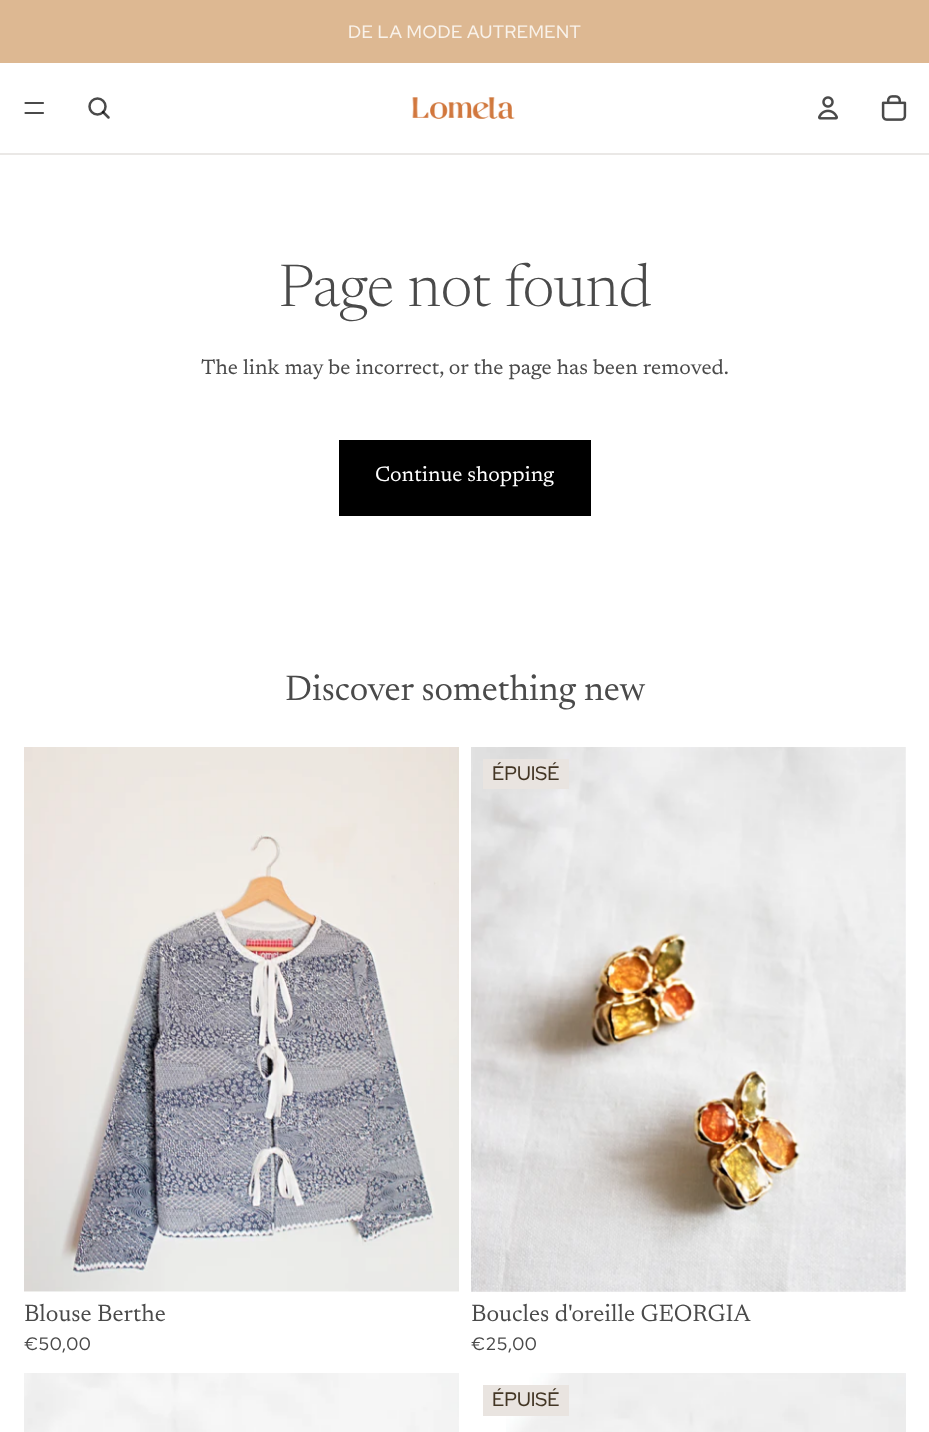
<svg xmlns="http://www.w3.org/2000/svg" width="929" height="1432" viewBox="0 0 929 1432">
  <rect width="100%" height="100%" fill="#fff"/>
  <path d="M0 0h929v63H0z" fill="#ddb892"/>
  <path d="M0 153h929v2H0z" fill="#eae8e6"/>
  <path d="M25.5 103H43M25.5 113H43" fill="none" stroke="#4a4a4a" stroke-width="2.2" stroke-linecap="round"/>
  <circle cx="97.5" cy="106.5" r="8" fill="none" stroke="#4a4a4a" stroke-width="2.5"/>
  <path d="M103 112L108.5 117.5" fill="none" stroke="#000000b5" stroke-width="2.5" stroke-linecap="round" stroke-linejoin="round"/>
  <image x="412" y="97" width="103" height="22" href="img/1.png"/>
  <image x="818" y="96" width="20" height="24" href="img/2.png"/>
  <image x="881" y="95" width="26" height="26" href="img/3.png"/>
  <path d="M339 440h252v76H339z" fill="#000"/>
  <image x="24" y="747" width="435" height="545" href="img/4.png"/>
  <image x="471" y="747" width="435" height="545" href="img/5.png"/>
  <path d="M483 759h86v30H483z" fill="#e9e4e0"/>
  <image x="24" y="1373" width="435" height="59" href="img/6.png"/>
  <image x="506" y="1373" width="400" height="59" href="img/7.png"/>
  <path d="M483 1385h86v31H483z" fill="#e9e4e0"/>
  <text x="348" y="38" font-family="Red Hat Display" font-size="18" font-weight="500" letter-spacing="0.5" fill="#f9f2ea">DE LA MODE AUTREMENT</text>
  <text x="279" y="306" font-family="Newsreader" font-size="60" font-weight="300" fill="#4a4a4a">Page not found</text>
  <text x="201" y="374" font-family="Newsreader" font-size="21" fill="#4a4a4a">The link may be incorrect, or the page has been removed.</text>
  <text x="375" y="481" font-family="Newsreader" font-size="21" fill="#fff">Continue shopping</text>
  <text x="285" y="700" font-family="'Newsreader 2'" font-size="36" fill="#4a4a4a">Discover something new</text>
  <text x="24" y="1321" font-family="'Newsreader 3'" font-size="24" fill="#4a4a4a">Blouse Berthe</text>
  <text x="24" y="1350" font-family="Red Hat Display" font-size="18" font-weight="500" letter-spacing="0.5" fill="#4a4a4a">€50,00</text>
  <text x="492" y="780" font-family="Red Hat Display" font-size="19.5" font-weight="500" fill="#433625">ÉPUISÉ</text>
  <text x="471" y="1321" font-family="'Newsreader 3'" font-size="24" fill="#4a4a4a">Boucles d'oreille GEORGIA</text>
  <text x="471" y="1350" font-family="Red Hat Display" font-size="18" font-weight="500" letter-spacing="0.5" fill="#4a4a4a">€25,00</text>
  <text x="492" y="1406" font-family="Red Hat Display" font-size="19.5" font-weight="500" fill="#433625">ÉPUISÉ</text>
</svg>
